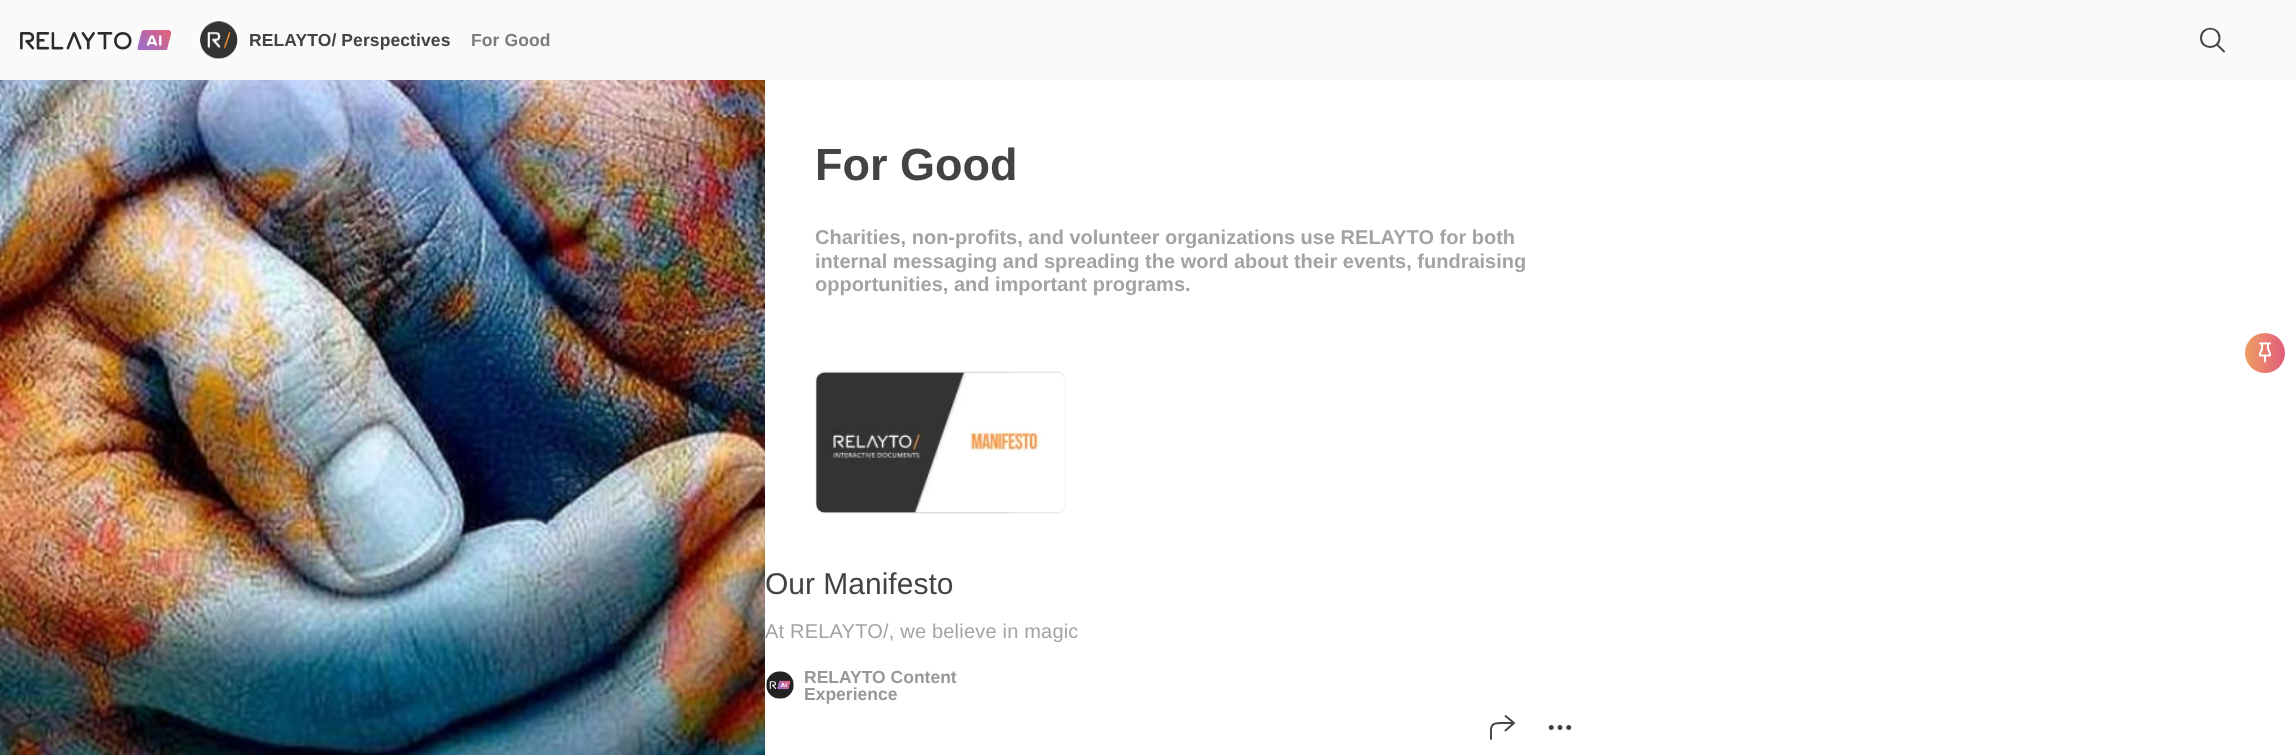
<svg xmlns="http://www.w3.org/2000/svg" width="2296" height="755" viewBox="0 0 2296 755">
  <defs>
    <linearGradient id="g1" gradientUnits="userSpaceOnUse" x1="2245" y1="352" x2="2285" y2="353"><stop offset="0.05" stop-color="#ef9b66"/><stop offset="0.93" stop-color="#e2617a"/></linearGradient>
    <clipPath id="clip1"><rect x="815" y="371" width="251" height="143" rx="10"/></clipPath>
    <linearGradient id="g2" gradientUnits="userSpaceOnUse" x1="843" y1="400" x2="1038" y2="205"><stop offset="0.5" stop-color="#cfcfcf"/><stop offset="0.5" stop-color="#e1e1e1"/></linearGradient>
    <linearGradient id="g3" gradientUnits="userSpaceOnUse" x1="843" y1="540" x2="1038" y2="345"><stop offset="0.5" stop-color="#cfcfcf"/><stop offset="0.5" stop-color="#e1e1e1"/></linearGradient>
  </defs>
  <rect width="100%" height="100%" fill="#fff"/>
  <path d="M0 0h2296v80H0z" fill="#fafafa"/>
  <image x="20" y="30" width="152" height="20" href="img/1.png"/>
  <circle cx="219" cy="40" r="19.5" fill="none" stroke="#fff"/>
  <circle cx="219" cy="40" r="19" fill="#fff"/>
  <image x="200" y="21" width="38" height="38" href="img/2.png"/>
  <path d="M2201 38C2201 50 2219.5 50 2219.5 38C2219.5 25.5 2201 25.5 2201 38ZM2217 44.5L2224 51.5" fill="none" stroke="#434343" stroke-width="1.9" stroke-linecap="round" stroke-linejoin="round"/>
  <image x="0" y="80" width="765" height="675" href="img/3.png"/>
  <circle cx="2265" cy="353" r="20" fill="url(#g1)"/>
  <image x="2259" y="342" width="12" height="21" href="img/4.png"/>
  <g clip-path="url(#clip1)">
    <path d="M816 371h249v2H816z" fill="url(#g2)"/>
    <path d="M816 373h249v140H816z" fill="url(#g3)"/>
  </g>
  <rect x="815.5" y="371.5" width="250" height="142" rx="9.5" fill="none" stroke="#f3f3f3"/>
  <image x="816" y="372" width="249" height="141" href="img/5.png"/>
  <image x="766" y="671" width="28" height="28" href="img/6.png"/>
  <path d="M1505.5 730.5L1514 723L1505.5 716M1491 739V728.5C1492 722.5 1497.5 723 1502.5 723H1512" fill="none" stroke="#434343" stroke-width="1.9" stroke-linecap="round" stroke-linejoin="round"/>
  <image x="1548" y="725" width="24" height="5" href="img/7.png"/>
  <text x="249" y="46" font-family="Liberation Sans" font-size="17.5" font-weight="bold" letter-spacing="0.1" fill="#434343">RELAYTO/ Perspectives</text>
  <text x="471" y="46" font-family="Liberation Sans" font-size="17.5" font-weight="bold" letter-spacing="0.1" fill="#7b7c7d">For Good</text>
  <text x="815" y="180" font-family="Liberation Sans" font-size="45" font-weight="bold" fill="#434343">For Good</text>
  <g font-family="Liberation Sans" font-size="20" font-weight="bold" fill="#a3a3a3">
    <text x="815" y="244">Charities, non-profits, and volunteer organizations use RELAYTO for both</text>
    <text x="815" y="268">internal messaging and spreading the word about their events, fundraising</text>
    <text x="815" y="291">opportunities, and important programs.</text>
  </g>
  <text x="765" y="594" font-family="Liberation Sans" font-size="30" fill="#434343">Our Manifesto</text>
  <text x="765" y="638" font-family="Liberation Sans" font-size="20" letter-spacing="0.2" fill="#a3a3a3">At RELAYTO/, we believe in magic</text>
  <g font-family="Liberation Sans" font-size="17.5" font-weight="bold" fill="#989898">
    <text x="804" y="683">RELAYTO Content</text>
    <text x="804" y="700">Experience</text>
  </g>
</svg>
